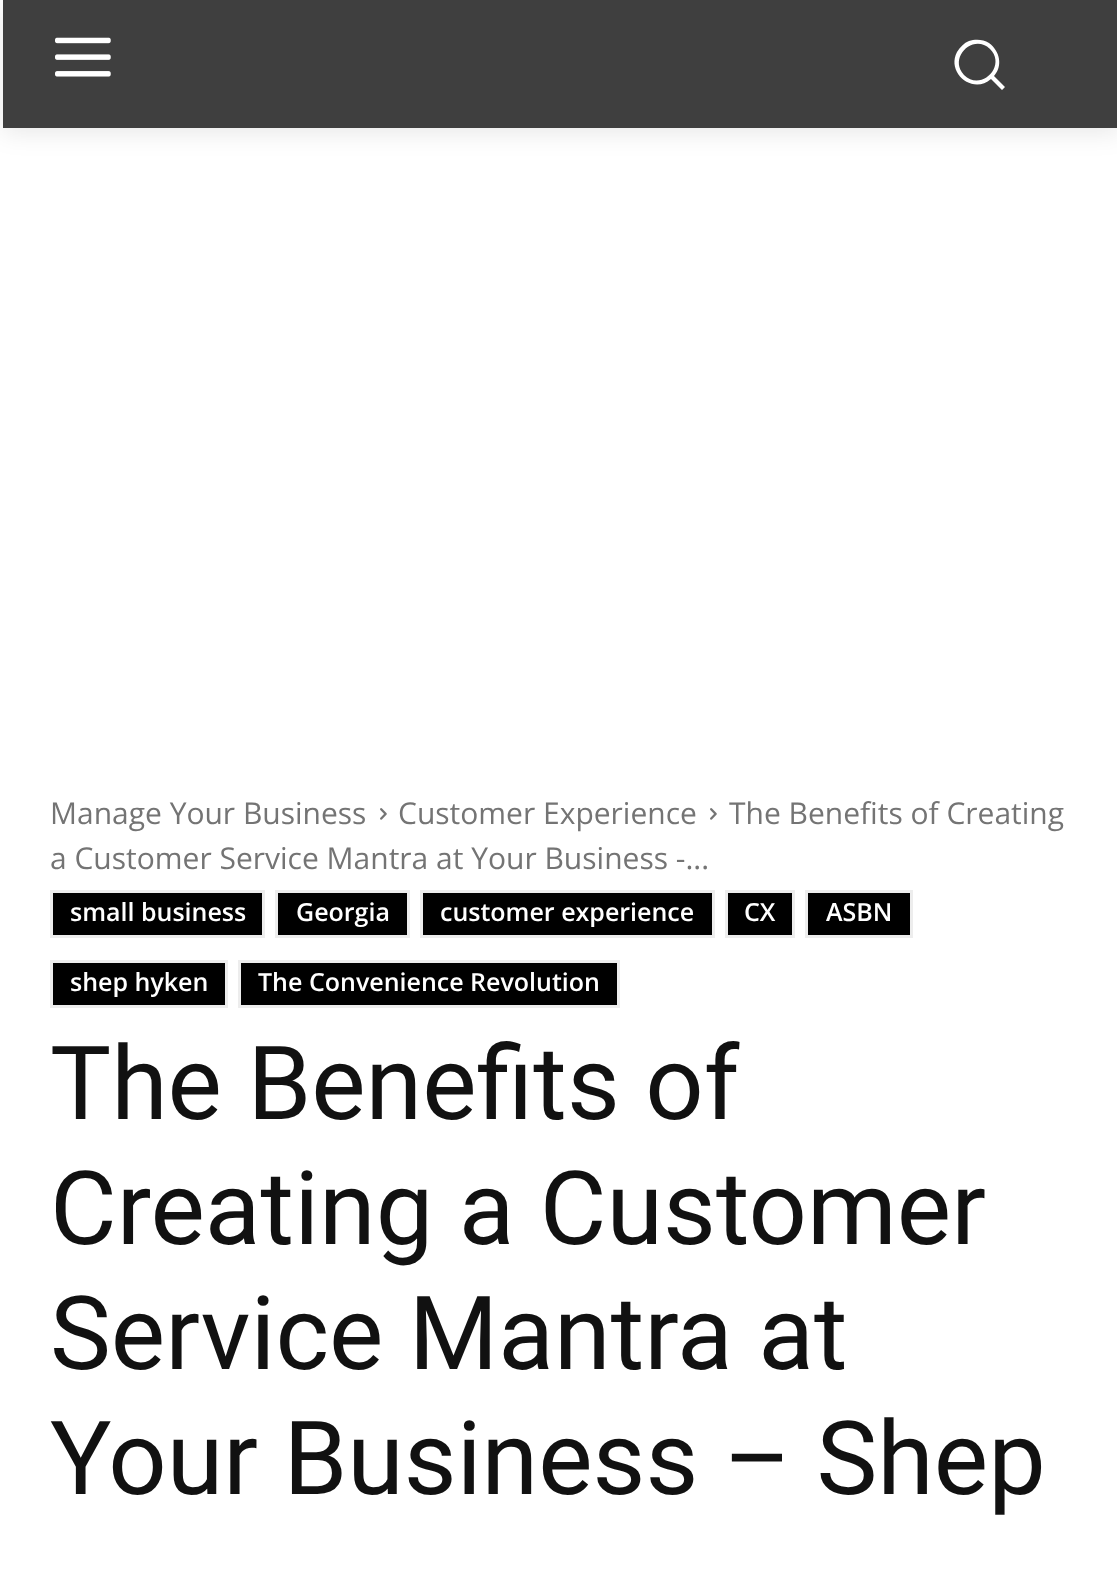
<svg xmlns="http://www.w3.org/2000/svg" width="1117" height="1587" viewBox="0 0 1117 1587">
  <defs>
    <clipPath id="clip1"><path d="M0 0H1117V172H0ZM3 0H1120V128H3Z" clip-rule="evenodd"/></clipPath>
  </defs>
  <rect width="100%" height="100%" fill="#fff"/>
  <path d="M3 0h1114v128H3z" fill="#3f3f3f"/>
  <image x="55" y="37" width="56" height="40" href="img/1.png"/>
  <path d="M1005 87L994 76C1003 66 1000 51 989 43C983 39 975 39 969 41C964 43 960 47 957 52C946 73 973 95 991 79L1002 90ZM964 75C948 58 973 33 990 49C1007 66 981 92 964 75Z" fill="#fff"/>
  <g clip-path="url(#clip1)">
    <path d="M3 5h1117v128H3z" fill="#00000017" filter="blur(12.5px)"/>
  </g>
  <image x="380" y="808" width="7" height="12" href="img/2.png"/>
  <image x="710" y="808" width="7" height="12" href="img/2.png"/>
  <path d="M51.5 891.5h212v45H51.5z" fill="#000" stroke="#ededed" stroke-width="3"/>
  <path d="M276.5 891.5h132v45H276.5z" fill="#000" stroke="#ededed" stroke-width="3"/>
  <path d="M421.5 891.5h292v45H421.5z" fill="#000" stroke="#ededed" stroke-width="3"/>
  <path d="M726.5 891.5h67v45H726.5z" fill="#000" stroke="#ededed" stroke-width="3"/>
  <path d="M806.5 891.5h105v45H806.5z" fill="#000" stroke="#ededed" stroke-width="3"/>
  <path d="M51.5 961.5h175v45H51.5z" fill="#000" stroke="#ededed" stroke-width="3"/>
  <path d="M239.5 961.5h379v45H239.5z" fill="#000" stroke="#ededed" stroke-width="3"/>
  <g font-family="Open Sans" font-size="30" fill="#747474">
    <text x="50" y="824">Manage Your Business</text>
    <text x="398" y="824">Customer Experience</text>
    <text x="729" y="824">The Benefits of Creating</text>
    <text x="50" y="869">a Customer Service Mantra at Your Business -...</text>
  </g>
  <g font-family="Open Sans" font-size="25" font-weight="600" fill="#fff">
    <text x="70" y="921">small business</text>
    <text x="296" y="921">Georgia</text>
    <text x="440" y="921">customer experience</text>
    <text x="744" y="921">CX</text>
    <text x="826" y="921">ASBN</text>
    <text x="70" y="991">shep hyken</text>
    <text x="258" y="991">The Convenience Revolution</text>
  </g>
  <g font-family="Roboto" font-size="102.5" fill="#111">
    <text x="50" y="1119">The Benefits of</text>
    <text x="50" y="1244">Creating a Customer</text>
    <text x="50" y="1369">Service Mantra at</text>
    <text x="50" y="1494">Your Business – Shep</text>
  </g>
</svg>
